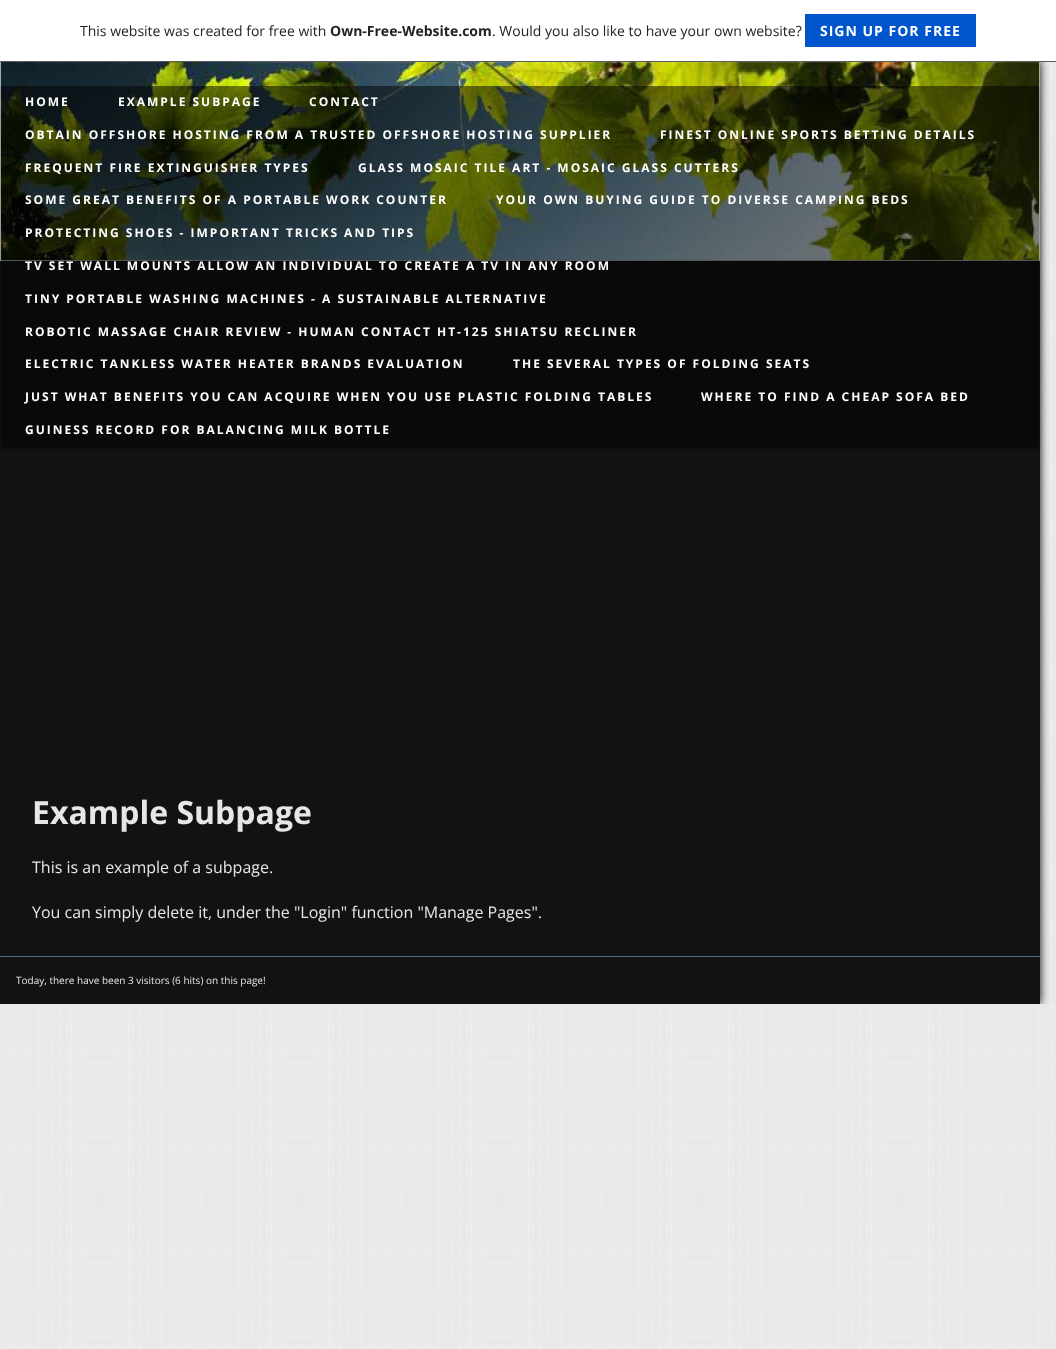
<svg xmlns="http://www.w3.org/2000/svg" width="1056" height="1349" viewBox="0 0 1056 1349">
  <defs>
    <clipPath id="clip1"><path d="M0 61h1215v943H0z"/></clipPath>
    <clipPath id="clip2"><path d="M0 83H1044V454H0ZM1 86H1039V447H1Z" clip-rule="evenodd"/></clipPath>
  </defs>
  <rect width="100%" height="100%" fill="#fff"/>
  <image x="0" y="62" width="1056" height="1287" href="img/1.png"/>
  <g clip-path="url(#clip1)">
    <path d="M0 61h1040v943H0z" fill="#000" filter="blur(5px)"/>
  </g>
  <image x="1" y="62" width="1038" height="198" href="img/2.png"/>
  <path d="M0.5 61.5h1039v199H0.5z" fill="none" stroke="#aaa"/>
  <path d="M0 61h1056v1H0z" fill="#5a5a5a"/>
  <path d="M805 14h171v33H805z" fill="#05c"/>
  <path d="M0 261h1040v743H0z" fill="#121212"/>
  <g clip-path="url(#clip2)">
    <path d="M2 89h1036v359H2z" fill="#00000082" filter="blur(1.5px)"/>
  </g>
  <path d="M1 86h1038v361H1z" fill="#00000080"/>
  <path d="M0 956h1040v1H0z" fill="#4b7082"/>
  <text x="80" y="36" font-family="Open Sans" font-size="14" fill="#232323">This website was created for free with</text>
  <text x="330" y="36" font-family="Open Sans" font-size="14" font-weight="bold" fill="#232323">Own-Free-Website.com</text>
  <text x="492" y="36" font-family="Open Sans" font-size="14" fill="#232323">. Would you also like to have your own website?</text>
  <text x="820" y="36" font-family="Open Sans" font-size="14" font-weight="bold" letter-spacing="1" fill="#fff">SIGN UP FOR FREE</text>
  <g font-family="Open Sans" font-size="12" font-weight="bold" letter-spacing="2" fill="#fff">
    <text x="25" y="106">HOME</text>
    <text x="118" y="106">EXAMPLE SUBPAGE</text>
    <text x="309" y="106">CONTACT</text>
    <text x="25" y="139">OBTAIN OFFSHORE HOSTING FROM A TRUSTED OFFSHORE HOSTING SUPPLIER</text>
    <text x="660" y="139">FINEST ONLINE SPORTS BETTING DETAILS</text>
    <text x="25" y="172">FREQUENT FIRE EXTINGUISHER TYPES</text>
    <text x="358" y="172">GLASS MOSAIC TILE ART - MOSAIC GLASS CUTTERS</text>
    <text x="25" y="204">SOME GREAT BENEFITS OF A PORTABLE WORK COUNTER</text>
    <text x="496" y="204">YOUR OWN BUYING GUIDE TO DIVERSE CAMPING BEDS</text>
    <text x="25" y="237">PROTECTING SHOES - IMPORTANT TRICKS AND TIPS</text>
    <text x="25" y="270">TV SET WALL MOUNTS ALLOW AN INDIVIDUAL TO CREATE A TV IN ANY ROOM</text>
    <text x="25" y="303">TINY PORTABLE WASHING MACHINES - A SUSTAINABLE ALTERNATIVE</text>
    <text x="25" y="336">ROBOTIC MASSAGE CHAIR REVIEW - HUMAN CONTACT HT-125 SHIATSU RECLINER</text>
    <text x="25" y="368">ELECTRIC TANKLESS WATER HEATER BRANDS EVALUATION</text>
    <text x="513" y="368">THE SEVERAL TYPES OF FOLDING SEATS</text>
    <text x="25" y="401">JUST WHAT BENEFITS YOU CAN ACQUIRE WHEN YOU USE PLASTIC FOLDING TABLES</text>
    <text x="701" y="401">WHERE TO FIND A CHEAP SOFA BED</text>
    <text x="25" y="434">GUINESS RECORD FOR BALANCING MILK BOTTLE</text>
  </g>
  <text x="32" y="824" font-family="Open Sans" font-size="32" font-weight="bold" fill="#e6e6e6">Example Subpage</text>
  <g font-family="Open Sans" font-size="16" fill="#e6e6e6">
    <text x="32" y="873">This is an example of a subpage.</text>
    <text x="32" y="918">You can simply delete it, under the "Login" function "Manage Pages".</text>
  </g>
  <text x="16" y="984" font-family="Open Sans" font-size="10" fill="#e6e6e6">Today, there have been 3 visitors (6 hits) on this page!</text>
</svg>
